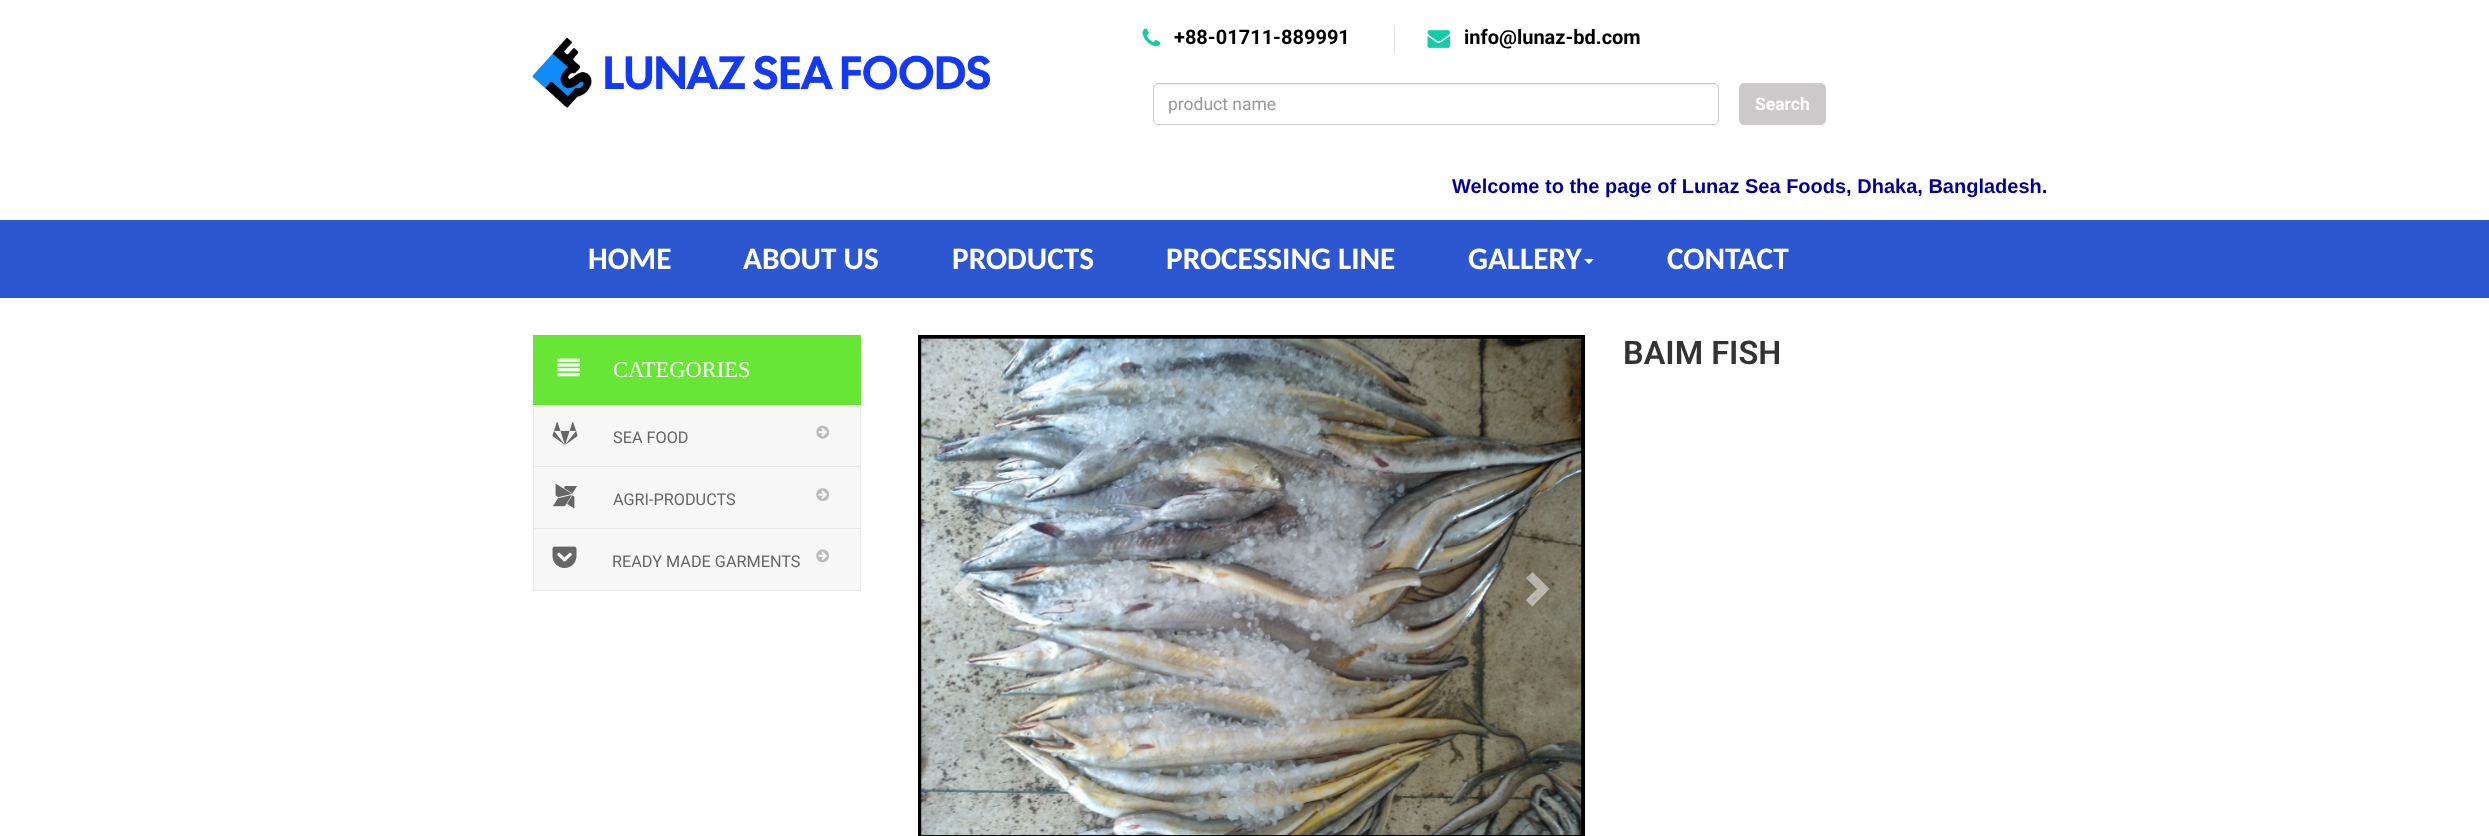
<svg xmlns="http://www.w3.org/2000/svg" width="2489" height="836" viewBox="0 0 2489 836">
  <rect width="100%" height="100%" fill="#fff"/>
  <image x="532" y="37" width="458" height="71" href="img/1.png"/>
  <path d="M1394 25h1v29H1394z" fill="#e2e2e2"/>
  <image x="1142" y="28" width="19" height="19" href="img/2.png"/>
  <image x="1427" y="30" width="23" height="18" href="img/3.png"/>
  <path d="M1158 85H1714C1716 85 1718 87 1718 89C1718 86 1717 84 1714 84H1158C1155 84 1154 86 1154 89C1154 87 1155 85 1158 85Z" fill="#ececec"/>
  <rect x="1153.5" y="83.5" width="565" height="41" rx="4.5" fill="none" stroke="#ccc"/>
  <rect x="1739.5" y="83.5" width="86" height="41" rx="4.5" fill="#cbc9c9" stroke="#ccc"/>
  <path d="M0 220h2489v78H0z" fill="#2d57d1"/>
  <path d="M1584 259H1594L1589 264Z" fill="#fff"/>
  <path d="M920 337h663v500H920z" fill="none" stroke="#000" stroke-width="4"/>
  <image x="921" y="338" width="661" height="498" href="img/4.png"/>
  <path d="M976.5 578L965.5 589L976.5 600L970 606.5L953 589L970 572Z" fill="#ffffff80"/>
  <path d="M1549.5 589L1532.5 606.5L1526 600L1537 589L1526 578L1532.5 572Z" fill="#ffffff80"/>
  <path d="M533 335h328v70H533z" fill="#67e635"/>
  <image x="557" y="358" width="23" height="19" href="img/5.png"/>
  <path d="M534 405h326v123H534z" fill="#f7f7f7"/>
  <path d="M860 405h1v186H860z" fill="#ebebeb"/>
  <path d="M533 466h328v1H533z" fill="#e8e8e8"/>
  <path d="M533 405h1v63H533z" fill="#ebebeb"/>
  <image x="552" y="422" width="26" height="23" href="img/6.png"/>
  <image x="816" y="425" width="13" height="14" href="img/7.png"/>
  <path d="M533 528h328v1H533z" fill="#e8e8e8"/>
  <path d="M533 468h1v61H533z" fill="#ebebeb"/>
  <image x="553" y="483" width="24" height="26" href="img/8.png"/>
  <image x="816" y="488" width="14" height="13" href="img/9.png"/>
  <path d="M534 529h326v61H534z" fill="#f7f7f7"/>
  <path d="M533 590h328v1H533z" fill="#e8e8e8"/>
  <path d="M533 529h1v62H533z" fill="#ebebeb"/>
  <image x="552" y="546" width="25" height="22" href="img/10.png"/>
  <image x="816" y="549" width="13" height="14" href="img/11.png"/>
  <g font-family="Roboto" font-size="20" font-weight="bold" fill="#000">
    <text x="1174" y="44">+88-01711-889991</text>
    <text x="1464" y="44">info@lunaz-bd.com</text>
  </g>
  <text x="1168" y="110" font-family="Roboto" font-size="17.5" fill="#999">product name</text>
  <text x="1755" y="110" font-family="Roboto" font-size="17.5" font-weight="bold" fill="#fff">Search</text>
  <text x="1452" y="193" font-family="Liberation Sans" font-size="20" font-weight="bold" fill="#009">Welcome to the page of Lunaz Sea Foods, Dhaka, Bangladesh.</text>
  <g font-family="Carlito" font-size="31.25" font-weight="bold" fill="#fff">
    <text x="588" y="269">HOME</text>
    <text x="743" y="269">ABOUT US</text>
    <text x="952" y="269">PRODUCTS</text>
    <text x="1166" y="269">PROCESSING LINE</text>
    <text x="1468" y="269">GALLERY</text>
    <text x="1667" y="269">CONTACT</text>
  </g>
  <text x="1623" y="364" font-family="Roboto" font-size="32.5" font-weight="600" fill="#333">BAIM FISH</text>
  <text x="613" y="377" font-family="Liberation Serif" font-size="22.5" fill="#fff">CATEGORIES</text>
  <g font-family="Roboto" font-size="16.25" fill="#666">
    <text x="613" y="443">SEA FOOD</text>
    <text x="613" y="505">AGRI-PRODUCTS</text>
    <text x="612" y="567">READY MADE GARMENTS</text>
  </g>
</svg>
